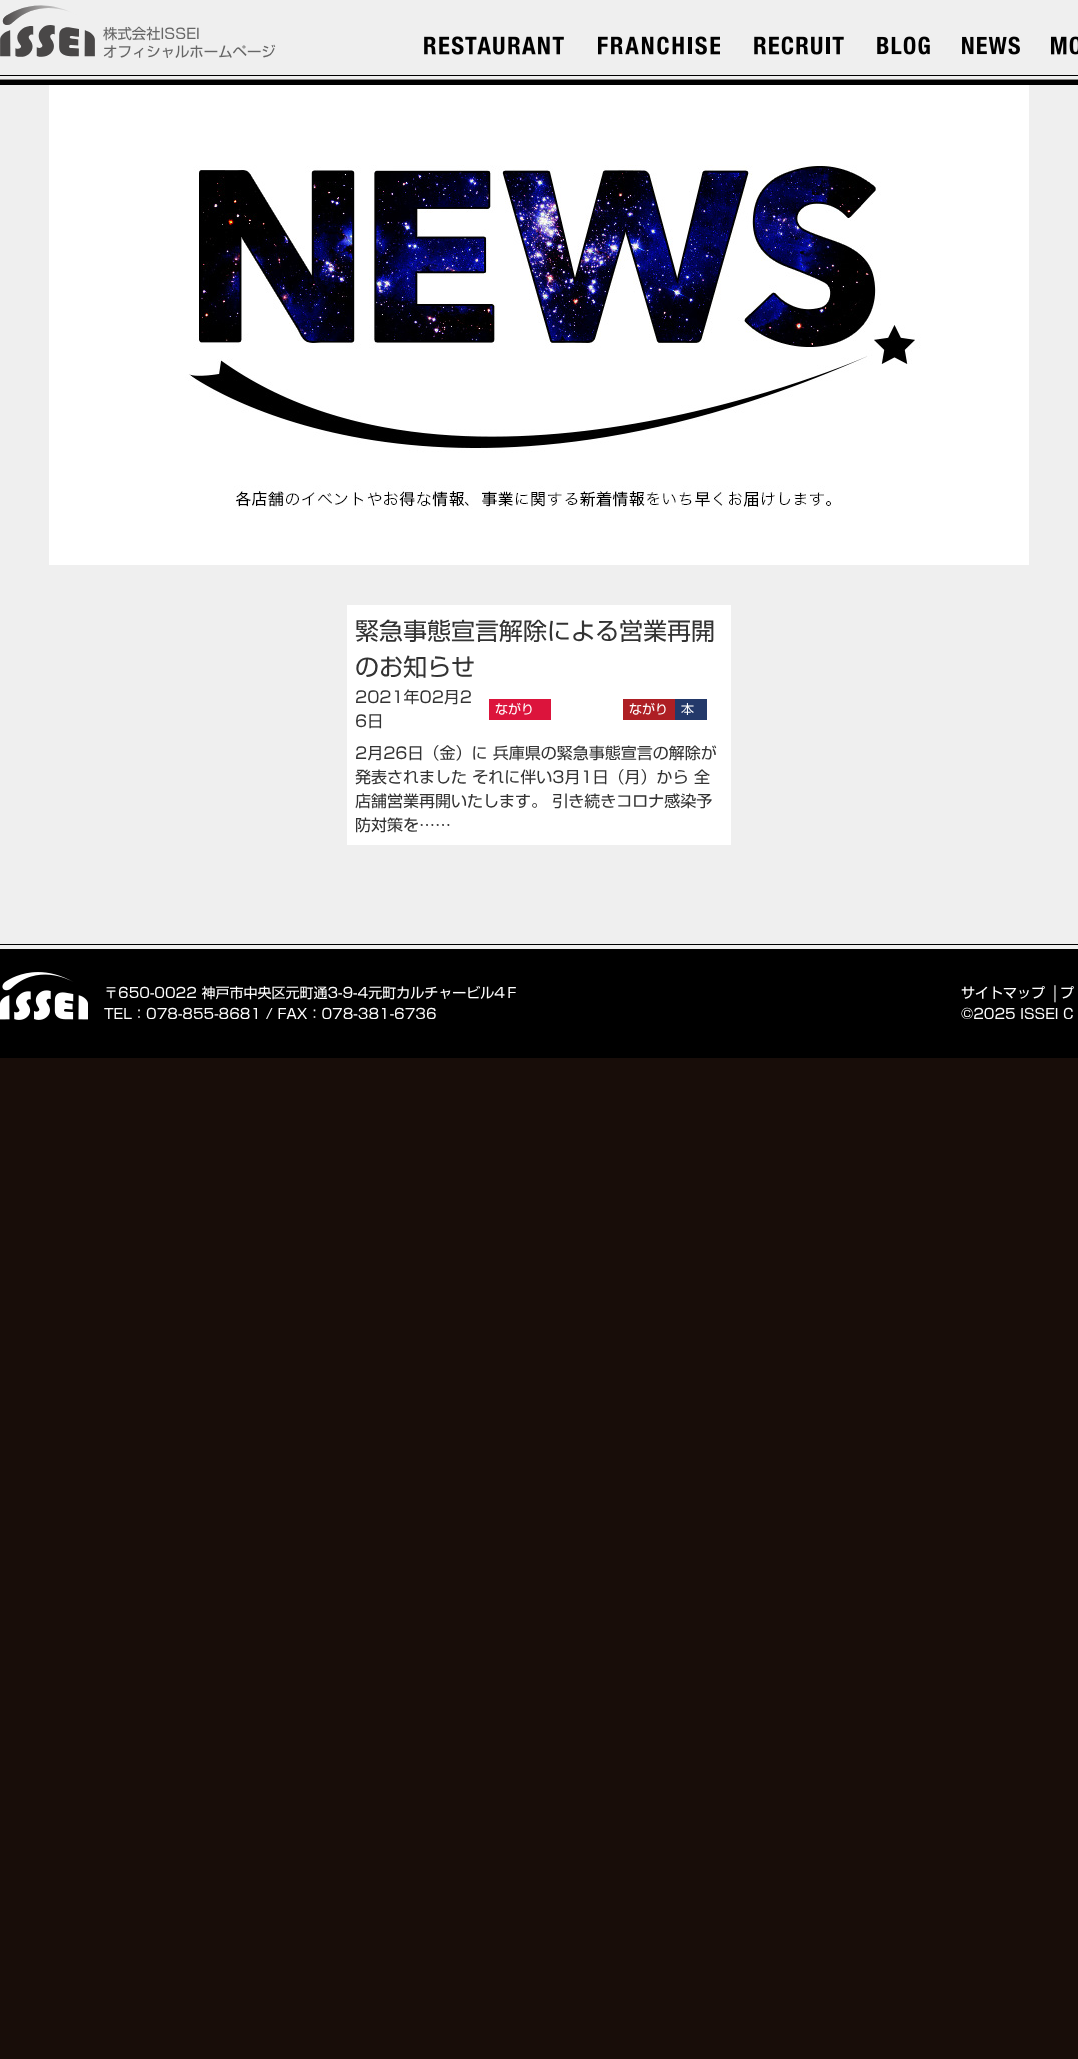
<svg xmlns="http://www.w3.org/2000/svg" width="1078" height="2059" viewBox="0 0 1078 2059">
  <rect width="100%" height="100%" fill="#180d09"/>
  <path d="M0 0h1078v949H0z" fill="#efefef"/>
  <path d="M0 80h1078v5H0z" fill="#000"/>
  <image x="0" y="5" width="95" height="52" href="img/1.png"/>
  <image x="424" y="36" width="140" height="19" href="img/2.png"/>
  <image x="598" y="36" width="122" height="19" href="img/3.png"/>
  <image x="754" y="36" width="90" height="19" href="img/4.png"/>
  <image x="877" y="36" width="53" height="19" href="img/5.png"/>
  <image x="962" y="36" width="58" height="19" href="img/6.png"/>
  <image x="1051" y="36" width="27" height="19" href="img/7.png"/>
  <path d="M0 75h1078v1H0z" fill="#000"/>
  <path d="M0 79h1078v1H0z" fill="#868583"/>
  <image x="49" y="85" width="980" height="480" href="img/8.png"/>
  <path d="M347 605h384v240H347z" fill="#fff"/>
  <path d="M489 699h62v21H489z" fill="#dc143c"/>
  <path d="M623 699h52v21H623z" fill="#ae1f24"/>
  <path d="M675 699h32v21H675z" fill="#23396a"/>
  <path d="M0 949h1078v109H0z" fill="#000"/>
  <path d="M0 944h1078v1H0z" fill="#000"/>
  <image x="0" y="972" width="88" height="48" href="img/9.png"/>
  <g font-family="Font" font-size="14.4" fill="#666">
    <text x="103" y="39">株式会社ISSEI</text>
    <text x="103" y="57">オフィシャルホームページ</text>
  </g>
  <g font-family="Font" font-size="24" fill="#333">
    <text x="355" y="640">緊急事態宣言解除による営業再開</text>
    <text x="355" y="676">のお知らせ</text>
  </g>
  <g font-family="Font" font-size="16" fill="#333">
    <text x="355" y="703">2021年02月2</text>
    <text x="355" y="727">6日</text>
  </g>
  <g font-family="Font" font-size="13" fill="#fff">
    <text x="495" y="714">ながり</text>
    <text x="629" y="714">ながり</text>
    <text x="681" y="714">本</text>
  </g>
  <g font-family="Font" font-size="16" fill="#333">
    <text x="355" y="759">2月26日（金）に 兵庫県の緊急事態宣言の解除が</text>
    <text x="355" y="783">発表されました それに伴い3月1日（月）から 全</text>
    <text x="355" y="807">店舗営業再開いたします。 引き続きコロナ感染予</text>
    <text x="355" y="831">防対策を……</text>
  </g>
  <g font-family="Font" font-size="14" fill="#fff">
    <text x="104" y="998">〒650-0022 神戸市中央区元町通3-9-4元町カルチャービル4Ｆ</text>
    <text x="104" y="1019">TEL：078-855-8681 / FAX：078-381-6736</text>
    <text x="961" y="998">サイトマップ</text>
  </g>
  <text x="1050" y="998" font-family="Liberation Serif" font-size="14" fill="#fff">│</text>
  <g font-family="Font" font-size="14" fill="#fff">
    <text x="1060" y="998">プ</text>
    <text x="961" y="1019">©2025 ISSEI C</text>
  </g>
</svg>
